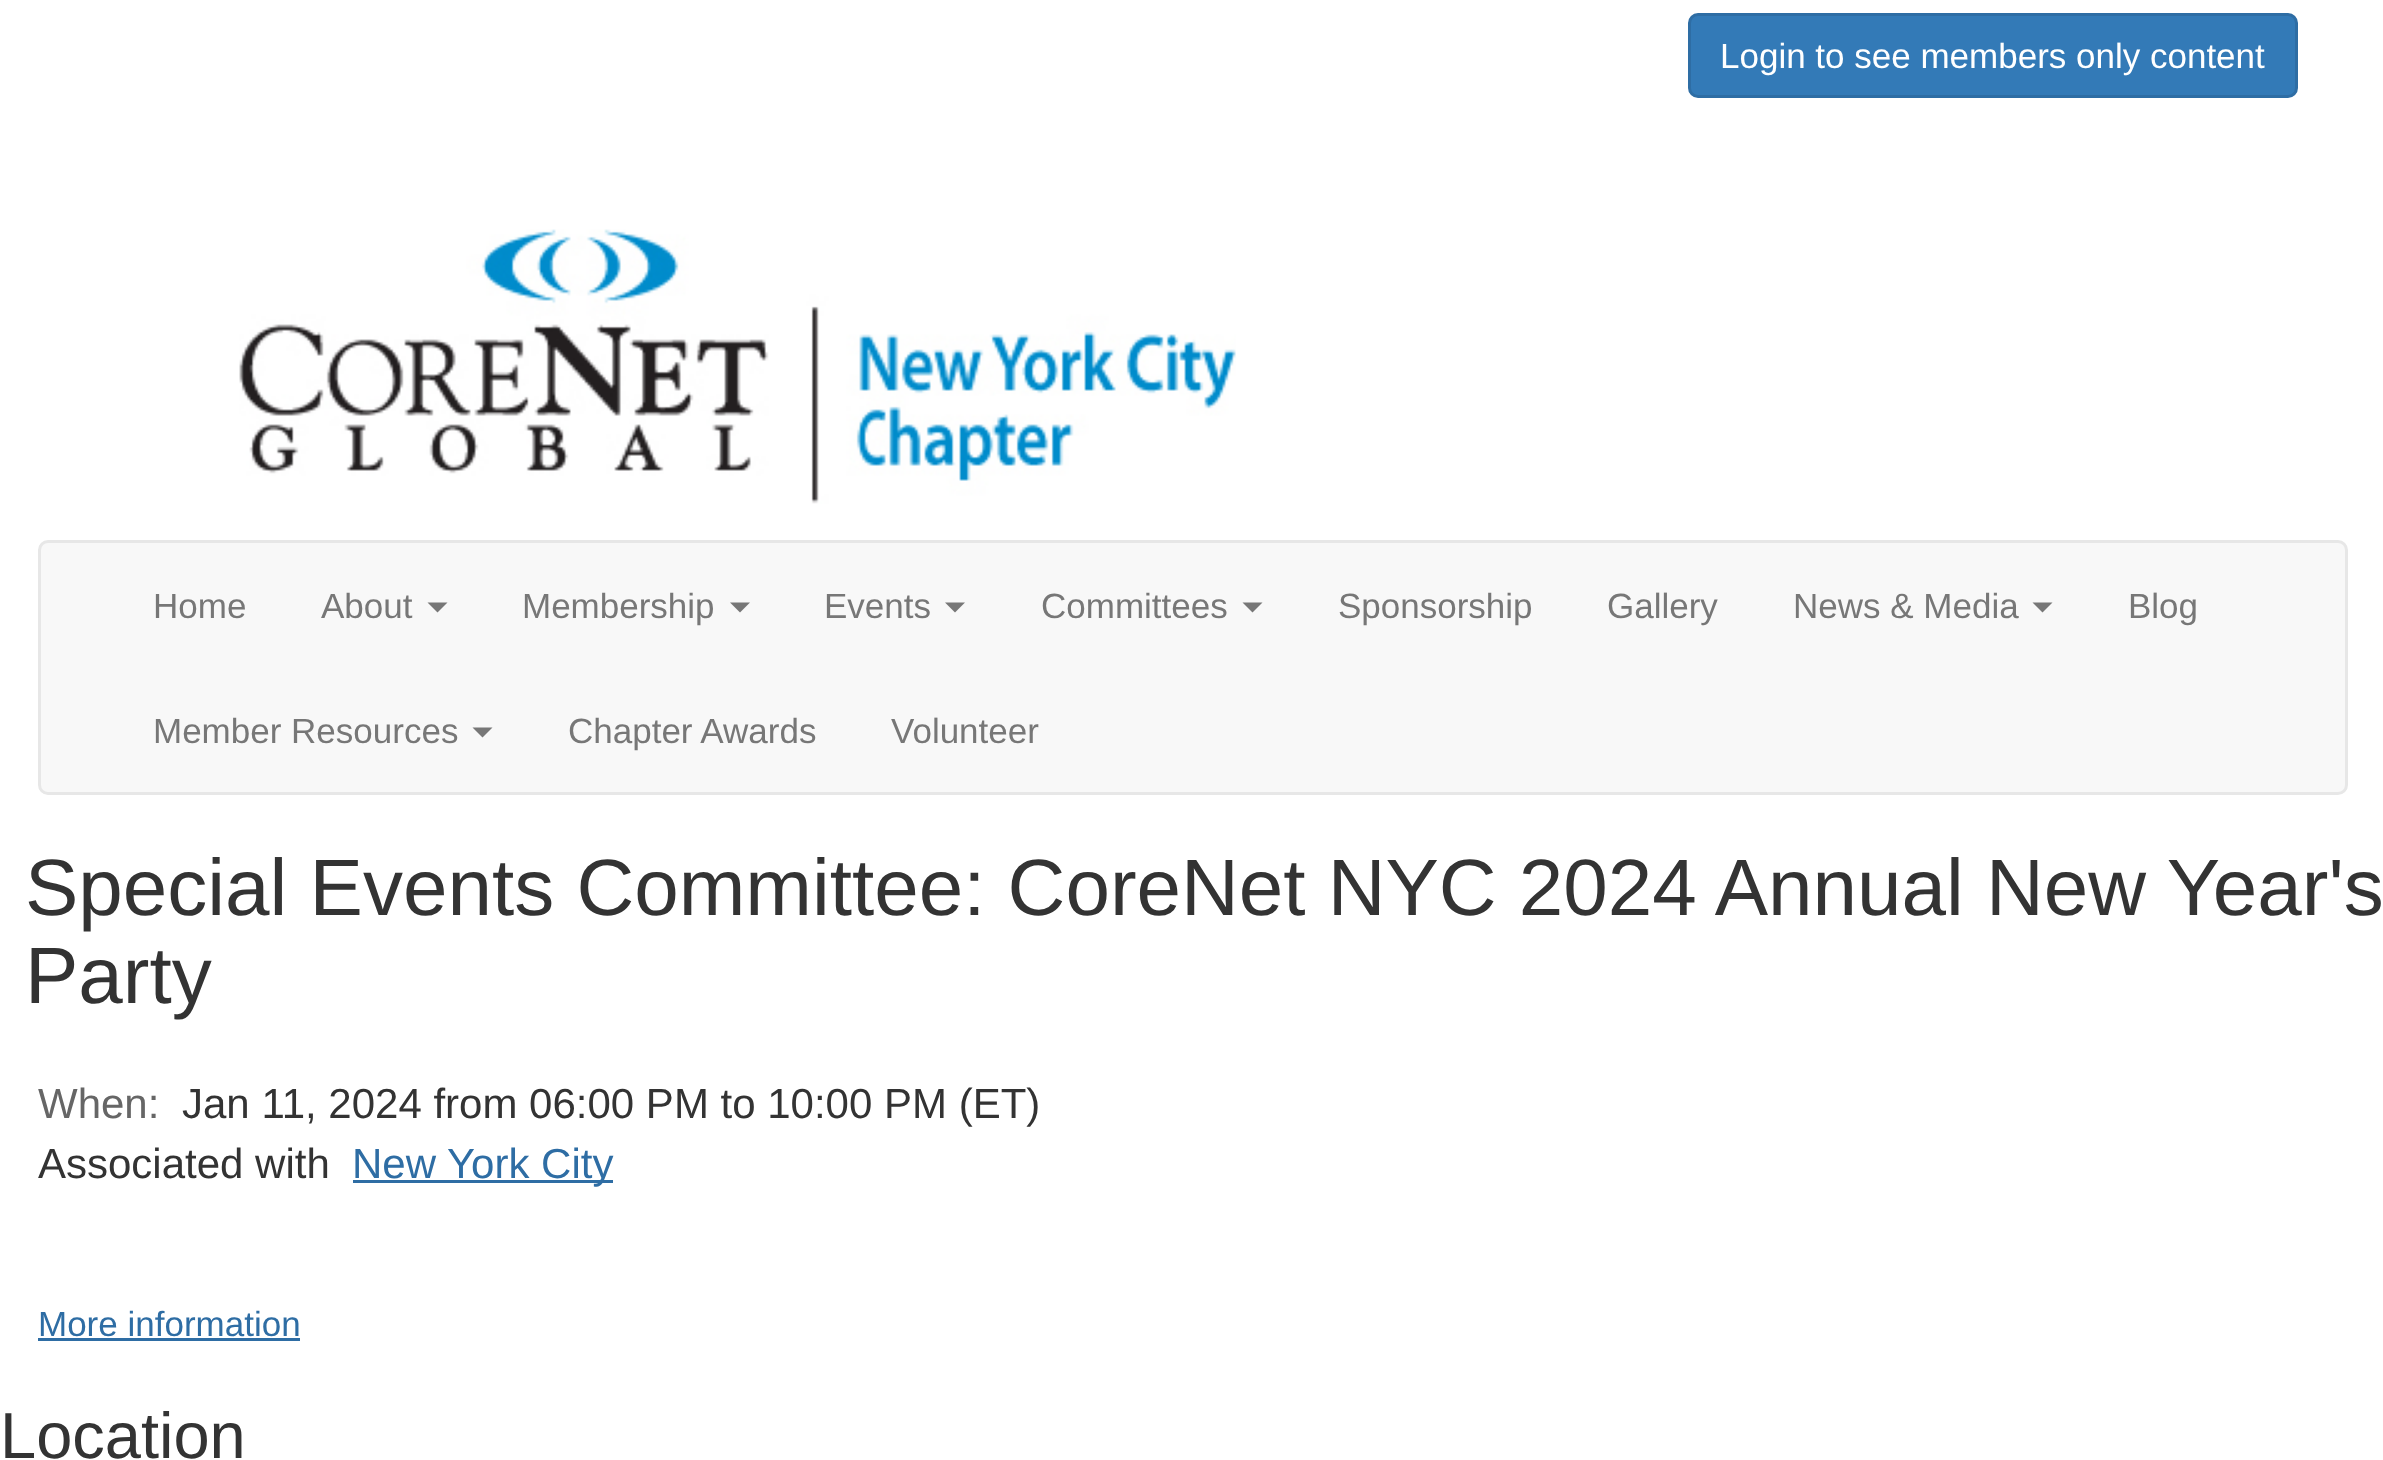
<svg xmlns="http://www.w3.org/2000/svg" width="2383" height="1460" viewBox="0 0 2383 1460">
  <rect width="100%" height="100%" fill="#fff"/>
  <rect x="1689.5" y="14.5" width="607" height="82" rx="8.5" fill="#337ab7" stroke="#2e6da4" stroke-width="3"/>
  <image x="239" y="229" width="997" height="275" href="img/1.png"/>
  <rect x="39.5" y="541.5" width="2307" height="252" rx="8.5" fill="#f8f8f8" stroke="#e7e7e7" stroke-width="3"/>
  <path d="M427.5 602.5H447.5L437.5 612.5Z" fill="#777"/>
  <path d="M730 602.5H750L740 612.5Z" fill="#777"/>
  <path d="M945 602.5H965L955 612.5Z" fill="#777"/>
  <path d="M1242.5 602.5H1262.5L1252.5 612.5Z" fill="#777"/>
  <path d="M2032.5 602.5H2052.5L2042.5 612.5Z" fill="#777"/>
  <path d="M472.5 727.5H492.5L482.5 737.5Z" fill="#777"/>
  <path d="M353 1180h260v3H353z" fill="#2e6da4"/>
  <path d="M38 1338h262v3H38z" fill="#2e6da4"/>
  <text x="1720" y="68" font-family="Liberation Sans" font-size="35" fill="#fff">Login to see members only content</text>
  <g font-family="Liberation Sans" font-size="35" fill="#777">
    <text x="153" y="618">Home</text>
    <text x="321" y="618">About</text>
    <text x="522" y="618">Membership</text>
    <text x="824" y="618">Events</text>
    <text x="1041" y="618">Committees</text>
    <text x="1338" y="618">Sponsorship</text>
    <text x="1607" y="618">Gallery</text>
    <text x="1793" y="618">News &amp; Media</text>
    <text x="2128" y="618">Blog</text>
    <text x="153" y="743">Member Resources</text>
    <text x="568" y="743">Chapter Awards</text>
    <text x="891" y="743">Volunteer</text>
  </g>
  <g font-family="Liberation Sans" font-size="80" fill="#333">
    <text x="25" y="915">Special Events Committee: CoreNet NYC 2024 Annual New Year's</text>
    <text x="25" y="1003">Party</text>
  </g>
  <text x="38" y="1118" font-family="Liberation Sans" font-size="42" fill="#666">When:</text>
  <g font-family="Liberation Sans" font-size="42" fill="#333">
    <text x="182" y="1118">Jan 11, 2024 from 06:00 PM to 10:00 PM (ET)</text>
    <text x="38" y="1178">Associated with</text>
  </g>
  <text x="352" y="1178" font-family="Liberation Sans" font-size="42" fill="#2e6da4">New York City</text>
  <text x="38" y="1336" font-family="Liberation Sans" font-size="35" fill="#2e6da4">More information</text>
  <text x="0" y="1458" font-family="Liberation Sans" font-size="65" fill="#333">Location</text>
</svg>
